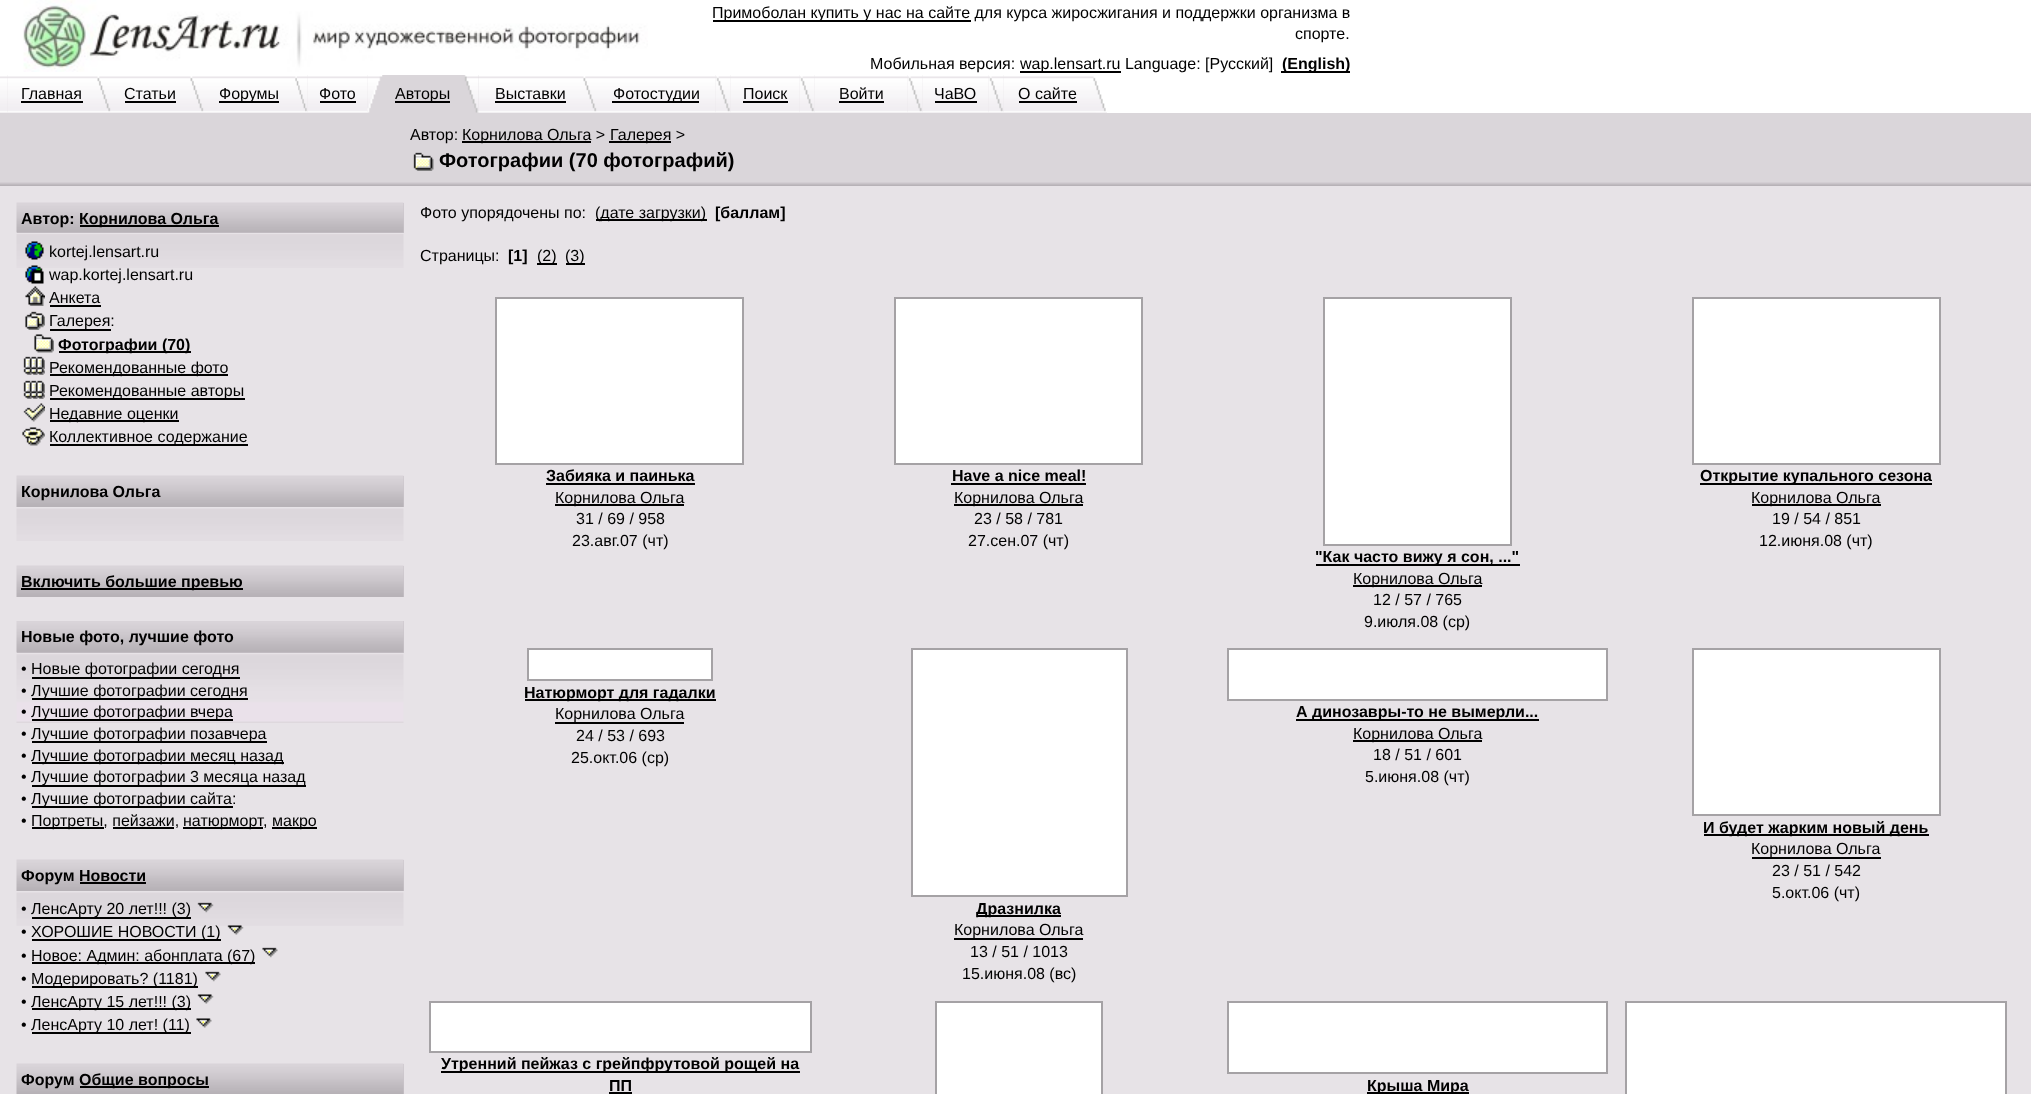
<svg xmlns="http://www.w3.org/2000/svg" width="2031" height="1094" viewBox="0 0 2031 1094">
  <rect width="100%" height="100%" fill="#e7e3e7"/>
  <path d="M0 0h2031v75H0z" fill="#fff"/>
  <image x="23" y="0" width="625" height="72" href="img/1.png"/>
  <path d="M713 20h258v2H713z" fill="#000"/>
  <path d="M1020 71h101v2H1020z" fill="#000"/>
  <path d="M1281 71h69v2H1281z" fill="#000"/>
  <image x="0" y="75" width="8" height="38" href="img/2.png"/>
  <image x="96" y="75" width="15" height="38" href="img/3.png"/>
  <image x="189" y="75" width="15" height="38" href="img/3.png"/>
  <image x="294" y="75" width="14" height="38" href="img/4.png"/>
  <path d="M368 75h111v38H368z" fill="#dad6da"/>
  <image x="307" y="75" width="61" height="38" href="img/9.png"/>
  <image x="367" y="75" width="16" height="38" href="img/5.png"/>
  <image x="7" y="75" width="89" height="38" href="img/6.png"/>
  <path d="M21 101h62v2H21z" fill="#000"/>
  <image x="111" y="75" width="78" height="38" href="img/7.png"/>
  <path d="M125 101h51v2H125z" fill="#000"/>
  <image x="204" y="75" width="90" height="38" href="img/8.png"/>
  <path d="M219 101h60v2H219z" fill="#000"/>
  <path d="M320 101h36v2H320z" fill="#000"/>
  <path d="M382 75h1v2H382z" fill="#d9d5d980"/>
  <path d="M395 101h55v2H395z" fill="#000"/>
  <image x="464" y="75" width="15" height="38" href="img/10.png"/>
  <image x="478" y="75" width="104" height="38" href="img/11.png"/>
  <path d="M495 101h71v2H495z" fill="#000"/>
  <image x="582" y="75" width="15" height="38" href="img/3.png"/>
  <image x="597" y="75" width="119" height="38" href="img/12.png"/>
  <path d="M612 101h87v2H612z" fill="#000"/>
  <image x="715" y="75" width="16" height="38" href="img/13.png"/>
  <image x="730" y="75" width="70" height="38" href="img/14.png"/>
  <path d="M743 101h45v2H743z" fill="#000"/>
  <image x="799" y="75" width="16" height="38" href="img/13.png"/>
  <image x="814" y="75" width="94" height="38" href="img/15.png"/>
  <path d="M839 101h45v2H839z" fill="#000"/>
  <image x="907" y="75" width="16" height="38" href="img/13.png"/>
  <image x="922" y="75" width="67" height="38" href="img/16.png"/>
  <path d="M935 101h42v2H935z" fill="#000"/>
  <image x="988" y="75" width="16" height="38" href="img/13.png"/>
  <image x="1003" y="75" width="89" height="38" href="img/6.png"/>
  <path d="M1019 101h58v2H1019z" fill="#000"/>
  <image x="1092" y="75" width="15" height="38" href="img/17.png"/>
  <path d="M1107 75h924v38H1107z" fill="#fff"/>
  <path d="M0 113h2031v69H0z" fill="#dad6da"/>
  <path d="M462 141h129v2H462z" fill="#000"/>
  <path d="M609 141h62v2H609z" fill="#000"/>
  <image x="413" y="152" width="21" height="19" href="img/18.png"/>
  <image x="0" y="182" width="2031" height="4" href="img/19.png"/>
  <path d="M17 203h387v30H17z" fill="#cac5ca"/>
  <image x="16" y="202" width="388" height="31" href="img/20.png"/>
  <path d="M80 225h139v2H80z" fill="#000"/>
  <image x="16" y="234" width="388" height="34" href="img/21.png"/>
  <image x="25" y="241" width="19" height="19" href="img/22.png"/>
  <image x="25" y="265" width="19" height="19" href="img/23.png"/>
  <image x="25" y="286" width="20" height="20" href="img/24.png"/>
  <path d="M50 305h51v2H50z" fill="#000"/>
  <image x="25" y="311" width="20" height="19" href="img/25.png"/>
  <path d="M50 329h61v2H50z" fill="#000"/>
  <image x="34" y="334" width="20" height="19" href="img/26.png"/>
  <path d="M59 351h132v2H59z" fill="#000"/>
  <image x="23" y="356" width="22" height="19" href="img/27.png"/>
  <path d="M50 374h178v2H50z" fill="#000"/>
  <image x="23" y="380" width="22" height="19" href="img/27.png"/>
  <path d="M50 398h195v2H50z" fill="#000"/>
  <image x="23" y="403" width="22" height="19" href="img/28.png"/>
  <path d="M50 420h129v2H50z" fill="#000"/>
  <image x="22" y="427" width="23" height="19" href="img/29.png"/>
  <path d="M50 444h198v2H50z" fill="#000"/>
  <path d="M403 476h1v31H403z" fill="#cac5ca"/>
  <image x="16" y="475" width="388" height="32" href="img/30.png"/>
  <image x="16" y="508" width="388" height="33" href="img/31.png"/>
  <path d="M403 566h1v31H403z" fill="#cac5ca"/>
  <image x="16" y="565" width="388" height="32" href="img/30.png"/>
  <path d="M21 588h222v2H21z" fill="#000"/>
  <path d="M17 621h387v32H17z" fill="#cac5ca"/>
  <image x="16" y="621" width="388" height="32" href="img/32.png"/>
  <image x="16" y="654" width="388" height="69" href="img/33.png"/>
  <path d="M32 677h208v2H32z" fill="#000"/>
  <path d="M32 698h216v2H32z" fill="#000"/>
  <path d="M32 719h201v2H32z" fill="#000"/>
  <path d="M32 741h235v2H32z" fill="#000"/>
  <path d="M32 762h252v2H32z" fill="#000"/>
  <path d="M32 785h274v2H32z" fill="#000"/>
  <path d="M32 806h201v2H32z" fill="#000"/>
  <path d="M32 827h72v2H32z" fill="#000"/>
  <path d="M183 827h80v2H183z" fill="#000"/>
  <path d="M272 827h45v2H272z" fill="#000"/>
  <path d="M113 827h61v2H113z" fill="#000"/>
  <path d="M403 860h1v31H403z" fill="#cac5ca"/>
  <image x="16" y="859" width="388" height="32" href="img/30.png"/>
  <path d="M80 882h66v2H80z" fill="#000"/>
  <image x="16" y="892" width="388" height="34" href="img/34.png"/>
  <path d="M32 917h159v2H32z" fill="#000"/>
  <image x="197" y="902" width="17" height="11" href="img/35.png"/>
  <path d="M32 939h189v2H32z" fill="#000"/>
  <image x="227" y="925" width="17" height="10" href="img/36.png"/>
  <path d="M32 962h223v2H32z" fill="#000"/>
  <image x="262" y="947" width="16" height="11" href="img/37.png"/>
  <path d="M32 986h166v2H32z" fill="#000"/>
  <image x="205" y="971" width="16" height="11" href="img/37.png"/>
  <path d="M32 1008h159v2H32z" fill="#000"/>
  <image x="197" y="994" width="17" height="10" href="img/38.png"/>
  <path d="M32 1032h159v2H32z" fill="#000"/>
  <image x="196" y="1018" width="16" height="10" href="img/39.png"/>
  <path d="M403 1064h1v30H403z" fill="#cac5ca"/>
  <image x="16" y="1063" width="388" height="31" href="img/40.png"/>
  <path d="M80 1086h129v2H80z" fill="#000"/>
  <path d="M596 219h111v2H596z" fill="#000"/>
  <path d="M537 263h20v2H537z" fill="#000"/>
  <path d="M566 263h19v2H566z" fill="#000"/>
  <path d="M496 298h247v166H496z" fill="#fff" stroke="#a5a2a5" stroke-width="2"/>
  <path d="M546 483h149v2H546z" fill="#000"/>
  <path d="M555 504h129v2H555z" fill="#000"/>
  <path d="M895 298h247v166H895z" fill="#fff" stroke="#a5a2a5" stroke-width="2"/>
  <path d="M951 483h135v2H951z" fill="#000"/>
  <path d="M954 504h129v2H954z" fill="#000"/>
  <path d="M1693 298h247v166H1693z" fill="#fff" stroke="#a5a2a5" stroke-width="2"/>
  <path d="M1700 483h232v2H1700z" fill="#000"/>
  <path d="M1752 504h129v2H1752z" fill="#000"/>
  <path d="M1324 298h187v247H1324z" fill="#fff" stroke="#a5a2a5" stroke-width="2"/>
  <path d="M1316 564h204v2H1316z" fill="#000"/>
  <path d="M1353 585h129v2H1353z" fill="#000"/>
  <path d="M528 649h184v31H528z" fill="#fff" stroke="#a5a2a5" stroke-width="2"/>
  <path d="M525 699h191v2H525z" fill="#000"/>
  <path d="M555 722h129v2H555z" fill="#000"/>
  <path d="M1228 649h379v51H1228z" fill="#fff" stroke="#a5a2a5" stroke-width="2"/>
  <path d="M1296 719h243v2H1296z" fill="#000"/>
  <path d="M1353 740h129v2H1353z" fill="#000"/>
  <path d="M1693 649h247v166H1693z" fill="#fff" stroke="#a5a2a5" stroke-width="2"/>
  <path d="M1704 834h225v2H1704z" fill="#000"/>
  <path d="M1752 857h129v2H1752z" fill="#000"/>
  <path d="M912 649h215v247H912z" fill="#fff" stroke="#a5a2a5" stroke-width="2"/>
  <path d="M977 915h84v2H977z" fill="#000"/>
  <path d="M954 938h129v2H954z" fill="#000"/>
  <path d="M430 1002h381v50H430z" fill="#fff" stroke="#a5a2a5" stroke-width="2"/>
  <path d="M441 1071h359v2H441z" fill="#000"/>
  <path d="M609 1092h23v2H609z" fill="#000"/>
  <path d="M936 1002h166v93H936z" fill="#fff" stroke="#a5a2a5" stroke-width="2"/>
  <path d="M1228 1002h379v71H1228z" fill="#fff" stroke="#a5a2a5" stroke-width="2"/>
  <path d="M1367 1092h102v2H1367z" fill="#000"/>
  <path d="M1626 1002h380v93H1626z" fill="#fff" stroke="#a5a2a5" stroke-width="2"/>
  <g font-family="Liberation Sans" font-size="16" fill="#000">
    <text x="712" y="18">Примоболан купить у нас на сайте для курса жиросжигания и поддержки организма в</text>
    <text x="1295" y="39">спорте.</text>
    <text x="870" y="69">Мобильная версия:</text>
    <text x="1020" y="69">wap.lensart.ru Language: [Русский]</text>
  </g>
  <text x="1282" y="69" font-family="Liberation Sans" font-size="16" font-weight="bold" fill="#000">(English)</text>
  <g font-family="Liberation Sans" font-size="16" fill="#000">
    <text x="21" y="99">Главная</text>
    <text x="124" y="99">Статьи</text>
    <text x="219" y="99">Форумы</text>
    <text x="319" y="99">Фото</text>
    <text x="395" y="99">Авторы</text>
    <text x="495" y="99">Выставки</text>
    <text x="613" y="99">Фотостудии</text>
    <text x="743" y="99">Поиск</text>
    <text x="839" y="99">Войти</text>
    <text x="934" y="99">ЧаВО</text>
    <text x="1018" y="99">О сайте</text>
    <text x="410" y="140">Автор:</text>
    <text x="462" y="140">Корнилова Ольга &gt;</text>
    <text x="610" y="140">Галерея &gt;</text>
  </g>
  <text x="439" y="167" font-family="Liberation Sans" font-size="20" font-weight="bold" fill="#000">Фотографии (70 фотографий)</text>
  <g font-family="Liberation Sans" font-size="16" font-weight="bold" fill="#000">
    <text x="21" y="224">Автор:</text>
    <text x="79" y="224">Корнилова Ольга</text>
  </g>
  <g font-family="Liberation Sans" font-size="16" fill="#000">
    <text x="49" y="257">kortej.lensart.ru</text>
    <text x="49" y="280">wap.kortej.lensart.ru</text>
    <text x="49" y="303">Анкета</text>
    <text x="49" y="326">Галерея:</text>
  </g>
  <text x="58" y="350" font-family="Liberation Sans" font-size="16" font-weight="bold" fill="#000">Фотографии (70)</text>
  <g font-family="Liberation Sans" font-size="16" fill="#000">
    <text x="49" y="373">Рекомендованные фото</text>
    <text x="49" y="396">Рекомендованные авторы</text>
    <text x="49" y="419">Недавние оценки</text>
    <text x="49" y="442">Коллективное содержание</text>
  </g>
  <g font-family="Liberation Sans" font-size="16" font-weight="bold" fill="#000">
    <text x="21" y="497">Корнилова Ольга</text>
    <text x="21" y="587">Включить большие превью</text>
    <text x="21" y="642">Новые фото, лучшие фото</text>
  </g>
  <g font-family="Liberation Sans" font-size="16" fill="#000">
    <text x="21" y="674">•</text>
    <text x="31" y="674">Новые фотографии сегодня</text>
    <text x="21" y="696">•</text>
    <text x="31" y="696">Лучшие фотографии сегодня</text>
    <text x="21" y="717">•</text>
    <text x="31" y="717">Лучшие фотографии вчера</text>
    <text x="21" y="739">•</text>
    <text x="31" y="739">Лучшие фотографии позавчера</text>
    <text x="21" y="761">•</text>
    <text x="31" y="761">Лучшие фотографии месяц назад</text>
    <text x="21" y="782">•</text>
    <text x="31" y="782">Лучшие фотографии 3 месяца назад</text>
    <text x="21" y="804">•</text>
    <text x="31" y="804">Лучшие фотографии сайта:</text>
    <text x="21" y="826">•</text>
    <text x="31" y="826">Портреты, пейзажи,</text>
    <text x="183" y="826">натюрморт</text>
    <text x="272" y="826">макро</text>
    <text x="263" y="826">,</text>
  </g>
  <text x="21" y="881" font-family="Liberation Sans" font-size="16" font-weight="bold" fill="#000">Форум Новости</text>
  <g font-family="Liberation Sans" font-size="16" fill="#000">
    <text x="21" y="914">•</text>
    <text x="31" y="914">ЛенсАрту 20 лет!!! (3)</text>
    <text x="21" y="937">•</text>
    <text x="31" y="937">ХОРОШИЕ НОВОСТИ (1)</text>
    <text x="21" y="961">•</text>
    <text x="31" y="961">Новое: Админ: абонплата (67)</text>
    <text x="21" y="984">•</text>
    <text x="31" y="984">Модерировать? (1181)</text>
    <text x="21" y="1007">•</text>
    <text x="31" y="1007">ЛенсАрту 15 лет!!! (3)</text>
    <text x="21" y="1030">•</text>
    <text x="31" y="1030">ЛенсАрту 10 лет! (11)</text>
  </g>
  <g font-family="Liberation Sans" font-size="16" font-weight="bold" fill="#000">
    <text x="21" y="1085">Форум</text>
    <text x="79" y="1085">Общие вопросы</text>
  </g>
  <g font-family="Liberation Sans" font-size="16" fill="#000">
    <text x="420" y="218">Фото упорядочены по:</text>
    <text x="595" y="218">(дате загрузки)</text>
  </g>
  <text x="715" y="218" font-family="Liberation Sans" font-size="16" font-weight="bold" fill="#000">[баллам]</text>
  <text x="420" y="261" font-family="Liberation Sans" font-size="16" fill="#000">Страницы:</text>
  <text x="508" y="261" font-family="Liberation Sans" font-size="16" font-weight="bold" fill="#000">[1]</text>
  <g font-family="Liberation Sans" font-size="16" fill="#000">
    <text x="537" y="261">(2)</text>
    <text x="565" y="261">(3)</text>
  </g>
  <text x="546" y="481" font-family="Liberation Sans" font-size="16" font-weight="bold" fill="#000">Забияка и паинька</text>
  <g font-family="Liberation Sans" font-size="16" fill="#000">
    <text x="555" y="503">Корнилова Ольга</text>
    <text x="576" y="524">31 / 69 / 958</text>
    <text x="572" y="546">23.авг.07 (чт)</text>
  </g>
  <text x="952" y="481" font-family="Liberation Sans" font-size="16" font-weight="bold" fill="#000">Have a nice meal!</text>
  <g font-family="Liberation Sans" font-size="16" fill="#000">
    <text x="954" y="503">Корнилова Ольга</text>
    <text x="974" y="524">23 / 58 / 781</text>
    <text x="968" y="546">27.сен.07 (чт)</text>
  </g>
  <text x="1700" y="481" font-family="Liberation Sans" font-size="16" font-weight="bold" fill="#000">Открытие купального сезона</text>
  <g font-family="Liberation Sans" font-size="16" fill="#000">
    <text x="1751" y="503">Корнилова Ольга</text>
    <text x="1772" y="524">19 / 54 / 851</text>
    <text x="1759" y="546">12.июня.08 (чт)</text>
  </g>
  <text x="1315" y="562" font-family="Liberation Sans" font-size="16" font-weight="bold" fill="#000">"Как часто вижу я сон, ..."</text>
  <g font-family="Liberation Sans" font-size="16" fill="#000">
    <text x="1353" y="584">Корнилова Ольга</text>
    <text x="1373" y="605">12 / 57 / 765</text>
    <text x="1364" y="627">9.июля.08 (ср)</text>
  </g>
  <text x="524" y="698" font-family="Liberation Sans" font-size="16" font-weight="bold" fill="#000">Натюрморт для гадалки</text>
  <g font-family="Liberation Sans" font-size="16" fill="#000">
    <text x="555" y="719">Корнилова Ольга</text>
    <text x="576" y="741">24 / 53 / 693</text>
    <text x="571" y="763">25.окт.06 (ср)</text>
  </g>
  <text x="1296" y="717" font-family="Liberation Sans" font-size="16" font-weight="bold" fill="#000">А динозавры-то не вымерли...</text>
  <g font-family="Liberation Sans" font-size="16" fill="#000">
    <text x="1353" y="739">Корнилова Ольга</text>
    <text x="1373" y="760">18 / 51 / 601</text>
    <text x="1365" y="782">5.июня.08 (чт)</text>
  </g>
  <text x="1703" y="833" font-family="Liberation Sans" font-size="16" font-weight="bold" fill="#000">И будет жарким новый день</text>
  <g font-family="Liberation Sans" font-size="16" fill="#000">
    <text x="1751" y="854">Корнилова Ольга</text>
    <text x="1772" y="876">23 / 51 / 542</text>
    <text x="1772" y="898">5.окт.06 (чт)</text>
  </g>
  <text x="976" y="914" font-family="Liberation Sans" font-size="16" font-weight="bold" fill="#000">Дразнилка</text>
  <g font-family="Liberation Sans" font-size="16" fill="#000">
    <text x="954" y="935">Корнилова Ольга</text>
    <text x="970" y="957">13 / 51 / 1013</text>
    <text x="962" y="979">15.июня.08 (вс)</text>
  </g>
  <g font-family="Liberation Sans" font-size="16" font-weight="bold" fill="#000">
    <text x="441" y="1069">Утренний пейжаз с грейпфрутовой рощей на</text>
    <text x="609" y="1091">ПП</text>
    <text x="1367" y="1091">Крыша Мира</text>
  </g>
</svg>
